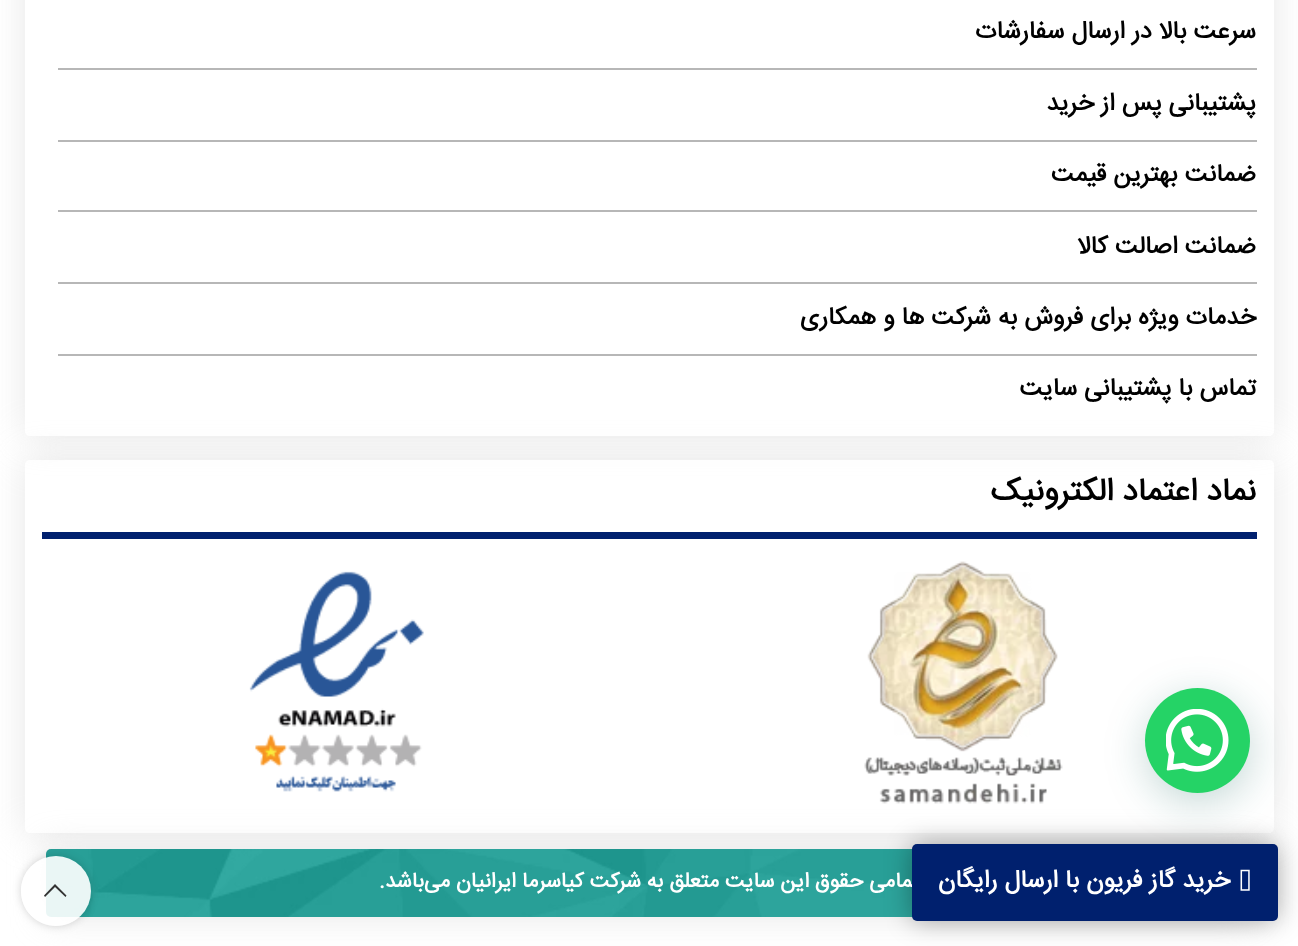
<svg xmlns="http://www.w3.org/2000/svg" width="1298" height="946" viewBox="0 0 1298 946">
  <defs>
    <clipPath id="clip1"><path d="M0 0H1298V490H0ZM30-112H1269C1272-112 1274-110 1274-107V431C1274 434 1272 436 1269 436H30C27 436 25 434 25 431V-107C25-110 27-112 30-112Z" clip-rule="evenodd"/></clipPath>
    <clipPath id="clip2"><path d="M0 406H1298V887H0ZM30 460H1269C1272 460 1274 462 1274 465V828C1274 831 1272 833 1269 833H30C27 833 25 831 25 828V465C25 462 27 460 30 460Z" clip-rule="evenodd"/></clipPath>
    <clipPath id="clip3"><path d="M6 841H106V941H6ZM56 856C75.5 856 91 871.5 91 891C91 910.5 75.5 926 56 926C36.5 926 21 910.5 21 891C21 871.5 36.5 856 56 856Z" clip-rule="evenodd"/></clipPath>
  </defs>
  <rect width="100%" height="100%" fill="#fff"/>
  <g clip-path="url(#clip1)">
    <rect x="25" y="-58" width="1249" height="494" rx="5" fill="#cfcfcf80" filter="blur(17.5px)"/>
  </g>
  <path d="M58 68h1199v2H58z" fill="#b7b7b7"/>
  <path d="M58 140h1199v2H58z" fill="#b7b7b7"/>
  <path d="M58 210h1199v2H58z" fill="#b7b7b7"/>
  <path d="M58 282h1199v2H58z" fill="#b7b7b7"/>
  <path d="M58 354h1199v2H58z" fill="#b7b7b7"/>
  <g clip-path="url(#clip2)">
    <rect x="25" y="460" width="1249" height="373" rx="5" fill="#cfcfcf80" filter="blur(17.5px)"/>
  </g>
  <path d="M42 532h1215v7H42z" fill="#00206e"/>
  <image x="864" y="561" width="199" height="243" href="img/1.png"/>
  <image x="249" y="571" width="175" height="221" href="img/2.png"/>
  <rect x="46" y="849" width="1207" height="68" rx="5" fill="#cfcfcf80" filter="blur(17.5px)"/>
  <rect x="46" y="849" width="1207" height="68" rx="5" fill="#00948b"/>
  <image x="46" y="849" width="867" height="68" href="img/4.png"/>
  <rect x="912" y="844" width="366" height="77" rx="5" fill="#00000057" filter="blur(13px)"/>
  <g clip-path="url(#clip3)">
    <rect x="21" y="856" width="70" height="70" rx="35" fill="#0000002b" filter="blur(4.5px)"/>
  </g>
  <circle cx="56" cy="891" r="35" fill="#ffffffe6"/>
  <path d="M65.5 897L66.5 895.5L55 884L44 895.5L45 897L55 887Z" fill="#333"/>
  <g font-family="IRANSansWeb" font-size="24.5" font-weight="bold" direction="rtl" fill="#000">
    <text x="1256" y="38">سرعت بالا در ارسال سفارشات</text>
    <text x="1256" y="110">پشتیبانی پس از خرید</text>
    <text x="1256" y="181">ضمانت بهترین قیمت</text>
    <text x="1256" y="253">ضمانت اصالت کالا</text>
    <text x="1256" y="324">خدمات ویژه برای فروش به شرکت ها و همکاری</text>
    <text x="1256" y="395">تماس با پشتیبانی سایت</text>
  </g>
  <text x="1256" y="500" font-family="IRANSansWeb" font-size="31.5" font-weight="bold" direction="rtl" fill="#000">نماد اعتماد الکترونیک</text>
  <text x="919" y="887" font-family="IRANSansWeb" font-size="21" font-weight="bold" direction="rtl" fill="#fff">تمامی حقوق این سایت متعلق به شرکت کیاسرما ایرانیان می‌باشد.</text>
  <rect x="912" y="844" width="366" height="77" rx="5" fill="#00206e"/>
  <text x="1230" y="887" font-family="IRANSansWeb" font-size="24.5" font-weight="bold" direction="rtl" fill="#fff">خرید گاز فریون با ارسال رایگان</text>
  <image x="1240" y="869" width="10" height="22" href="img/3.png"/>
  <rect x="1146" y="698" width="105" height="105" rx="52.5" fill="#075e543d" filter="blur(21px)"/>
  <circle cx="1197.5" cy="740.5" r="52.5" fill="#25d366"/>
  <image x="1166" y="709" width="63" height="63" href="img/5.png"/>
</svg>
